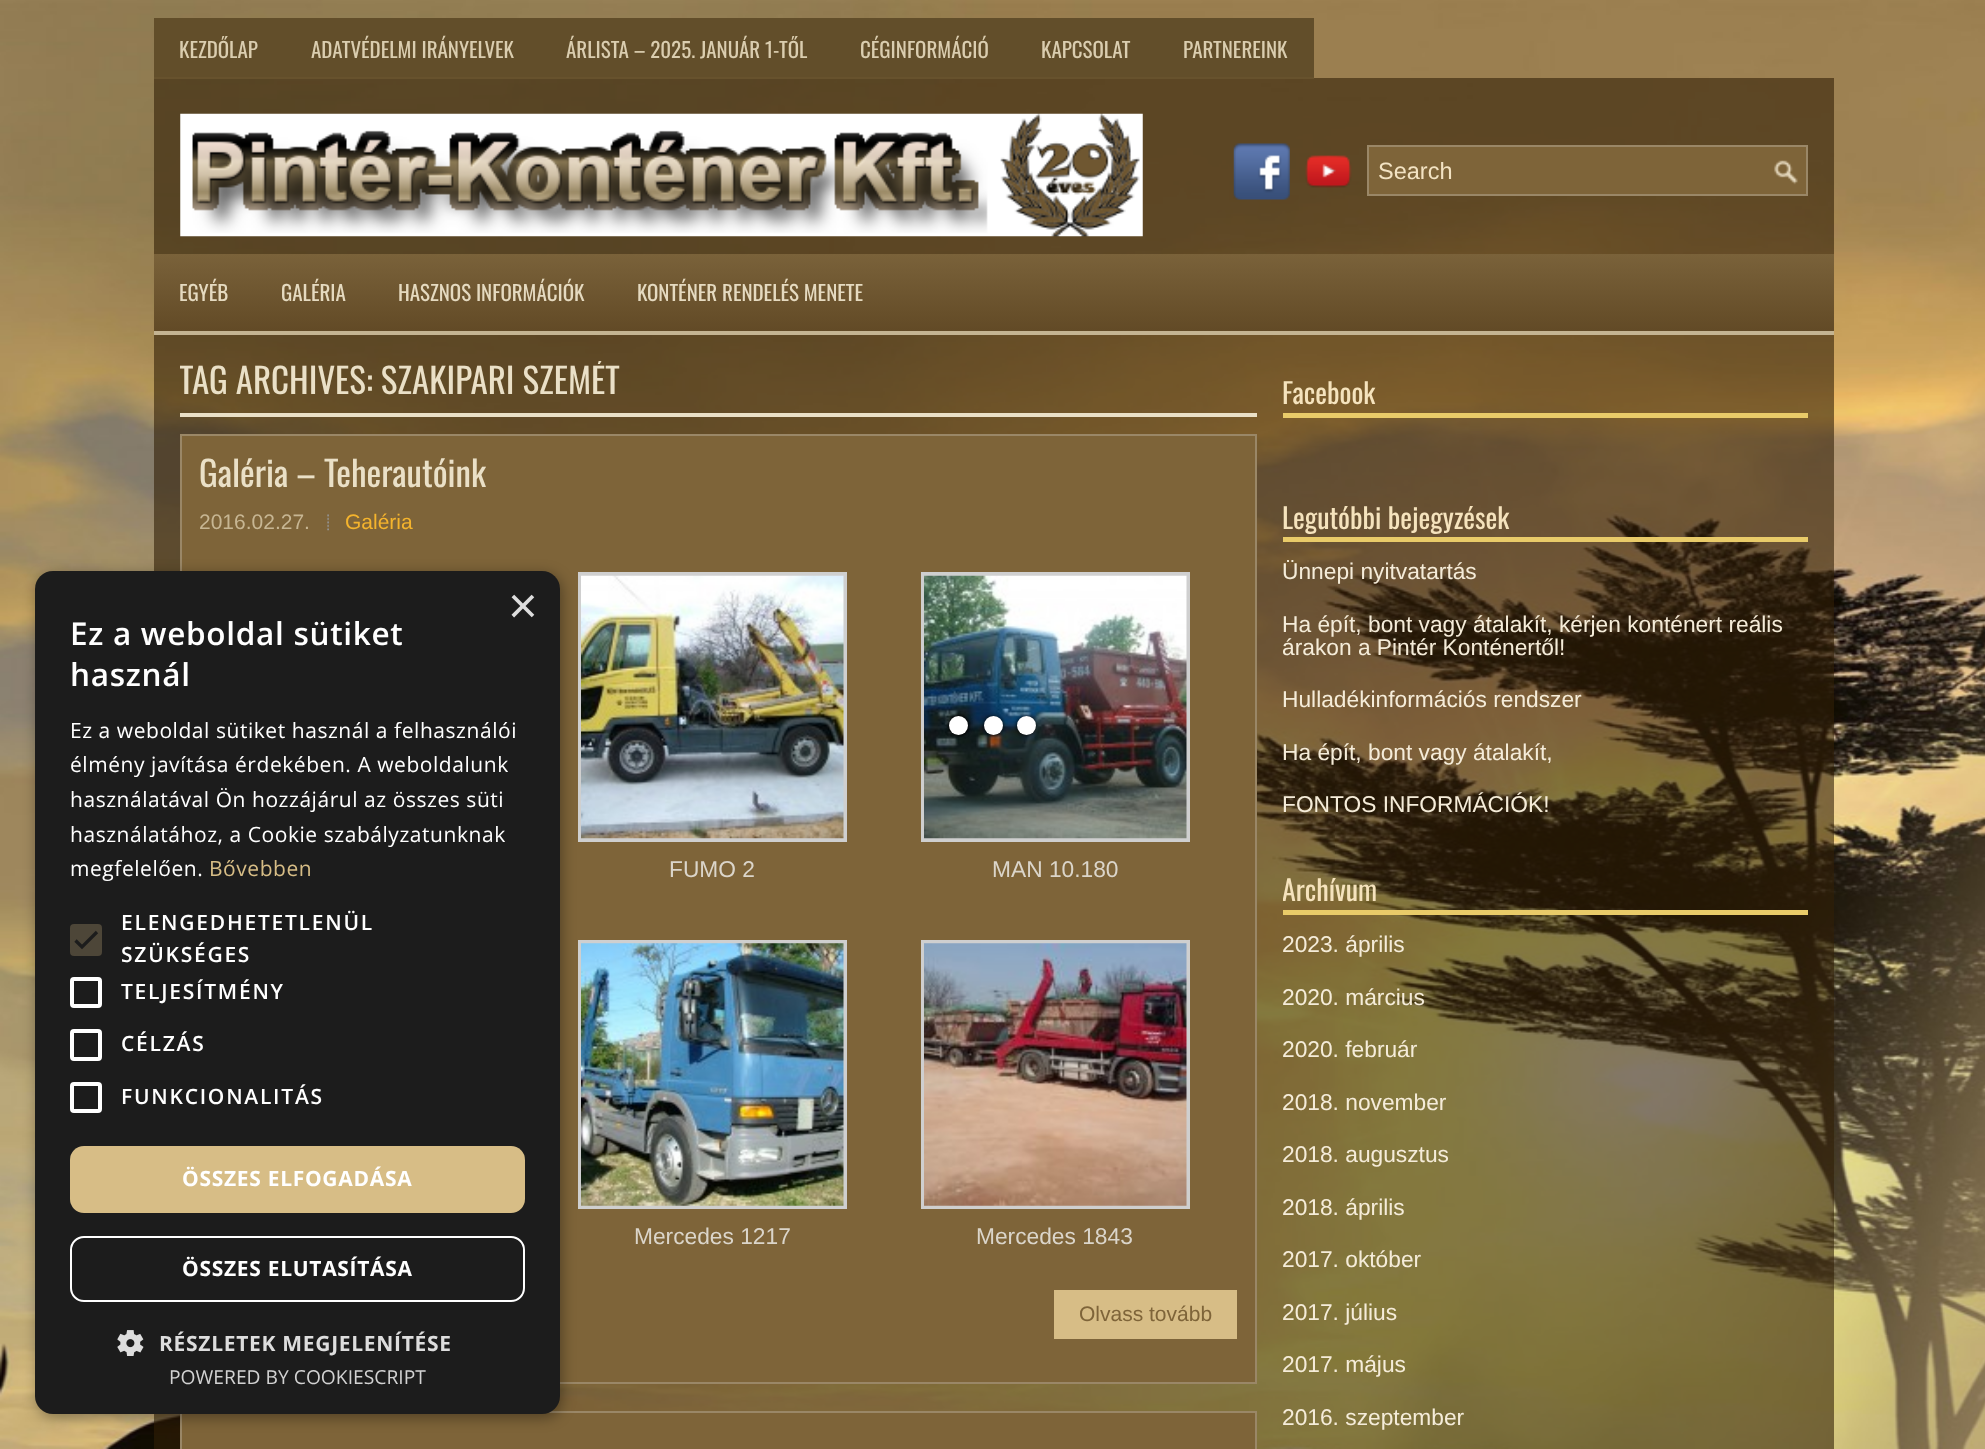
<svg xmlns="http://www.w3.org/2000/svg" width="1985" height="1449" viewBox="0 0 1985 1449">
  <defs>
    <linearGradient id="g1" gradientUnits="userSpaceOnUse" x1="994" y1="254" x2="994" y2="331"><stop offset="0" stop-color="#7a623a"/><stop offset="1" stop-color="#624a26"/></linearGradient>
    <clipPath id="clip1"><path d="M180 361h1077v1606H180z"/></clipPath>
    <clipPath id="clip2"><path d="M1283 361h525v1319H1283z"/></clipPath>
  </defs>
  <rect width="100%" height="100%" fill="#fff"/>
  <image x="0" y="0" width="1985" height="1449" href="img/1.png"/>
  <path d="M154 18h1160v59H154z" fill="#624e2a"/>
  <path d="M154 78h1680v176H154z" fill="#32200799"/>
  <path d="M154 77h1160v2H154z" fill="#67522d"/>
  <image x="180" y="113" width="963" height="124" href="img/2.png"/>
  <image x="1233" y="143" width="57" height="57" href="img/3.png"/>
  <image x="1305" y="155" width="47" height="33" href="img/4.png"/>
  <path d="M1369 147h437v47H1369z" fill="#7e6439"/>
  <image x="1774" y="160" width="24" height="25" href="img/5.png"/>
  <path d="M1368 146h439v49H1368z" fill="none" stroke="#9a8767" stroke-width="2"/>
  <path d="M154 254h1680v77H154z" fill="url(#g1)"/>
  <path d="M154 331h1680v4H154z" fill="#c4b492"/>
  <path d="M154 335h1680v1114H154z" fill="#32200799"/>
  <path d="M180 413h1077v4H180z" fill="#eae0c7"/>
  <path d="M181 435h1075v948H181z" fill="#7e6439" stroke="#9a8767" stroke-width="2"/>
  <image x="327" y="514" width="2" height="17" href="img/6.png"/>
  <path d="M580 574h265v266H580z" fill="none" stroke="#cfcfcf" stroke-width="4"/>
  <image x="581" y="575" width="263" height="264" href="img/7.png"/>
  <path d="M923 574h265v266H923z" fill="none" stroke="#cfcfcf" stroke-width="4"/>
  <image x="924" y="575" width="263" height="264" href="img/8.png"/>
  <path d="M580 942h265v265H580z" fill="none" stroke="#cfcfcf" stroke-width="4"/>
  <image x="581" y="943" width="263" height="263" href="img/9.png"/>
  <path d="M923 942h265v265H923z" fill="none" stroke="#cfcfcf" stroke-width="4"/>
  <image x="924" y="943" width="263" height="263" href="img/10.png"/>
  <path d="M1054 1290h183v49H1054z" fill="#d7bd86"/>
  <path d="M181 1412h1075v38H181z" fill="#7e6439" stroke="#9a8767" stroke-width="2"/>
  <path d="M1283 413h525v5H1283z" fill="#e9cb69"/>
  <path d="M1283 537h525v5H1283z" fill="#e9cb69"/>
  <path d="M1283 910h525v5H1283z" fill="#e9cb69"/>
  <rect x="949" y="716" width="19" height="19" rx="9.5" fill="#000" filter="blur(2px)"/>
  <rect x="949" y="716" width="19" height="19" rx="9.5" fill="#000" filter="blur(2px)"/>
  <circle cx="958.5" cy="725.5" r="9.5" fill="#fff"/>
  <rect x="984" y="716" width="19" height="19" rx="9.5" fill="#000" filter="blur(2px)"/>
  <circle cx="993.5" cy="725.5" r="9.5" fill="#fff"/>
  <rect x="1017" y="716" width="19" height="19" rx="9.5" fill="#000" filter="blur(2px)"/>
  <circle cx="1026.5" cy="725.5" r="9.5" fill="#fff"/>
  <rect x="37" y="574" width="525" height="844" rx="18" fill="#00000059" filter="blur(7px)"/>
  <rect x="35" y="571" width="525" height="843" rx="18" fill="#1c1c1c"/>
  <rect x="70" y="924" width="32" height="32" rx="4" fill="#4d4638"/>
  <path d="M75.5 940.5L82 947L97 932" fill="none" stroke="#1c1c1c" stroke-width="3.2"/>
  <rect x="72" y="979" width="28" height="27" rx="2" fill="none" stroke="#fff" stroke-width="4"/>
  <rect x="72" y="1031" width="28" height="28" rx="2" fill="none" stroke="#fff" stroke-width="4"/>
  <rect x="72" y="1084" width="28" height="27" rx="2" fill="none" stroke="#fff" stroke-width="4"/>
  <rect x="70" y="1146" width="455" height="67" rx="14" fill="#d7bd86"/>
  <rect x="71" y="1237" width="453" height="64" rx="13" fill="none" stroke="#fff" stroke-width="2"/>
  <image x="117" y="1330" width="27" height="26" href="img/11.png"/>
  <g font-family="Oswald" font-size="21" fill="#dacdaf">
    <text x="179" y="58">KEZDŐLAP</text>
    <text x="311" y="58">ADATVÉDELMI IRÁNYELVEK</text>
    <text x="566" y="58">ÁRLISTA – 2025. JANUÁR 1-TŐL</text>
    <text x="860" y="58">CÉGINFORMÁCIÓ</text>
    <text x="1041" y="58">KAPCSOLAT</text>
    <text x="1183" y="58">PARTNEREINK</text>
  </g>
  <text x="1378" y="179" font-family="Liberation Sans" font-size="23.5" fill="#f3e3c3">Search</text>
  <g font-family="Oswald" font-size="21" fill="#e5dac0">
    <text x="179" y="301">EGYÉB</text>
    <text x="281" y="301">GALÉRIA</text>
    <text x="398" y="301">HASZNOS INFORMÁCIÓK</text>
    <text x="637" y="301">KONTÉNER RENDELÉS MENETE</text>
  </g>
  <g clip-path="url(#clip1)">
    <text x="179" y="394" font-family="Oswald" font-size="35" fill="#eae0c7">TAG ARCHIVES: SZAKIPARI SZEMÉT</text>
  </g>
  <text x="199" y="487" font-family="Oswald" font-size="35" fill="#eae0c7">Galéria – Teherautóink</text>
  <text x="199" y="529" font-family="Liberation Sans" font-size="21" fill="#c7b693">2016.02.27.</text>
  <text x="345" y="529" font-family="Liberation Sans" font-size="21" fill="#f5b42d">Galéria</text>
  <g font-family="Liberation Sans" font-size="22.75" fill="#dbd5ca">
    <text x="669" y="877">FUMO 2</text>
    <text x="992" y="877">MAN 10.180</text>
    <text x="634" y="1244">Mercedes 1217</text>
    <text x="976" y="1244">Mercedes 1843</text>
  </g>
  <text x="1079" y="1321" font-family="Liberation Sans" font-size="21" fill="#7e6439">Olvass tovább</text>
  <g font-family="Oswald" font-size="28" fill="#f5e3bd">
    <text x="1282" y="404">Facebook</text>
    <text x="1282" y="529">Legutóbbi bejegyzések</text>
  </g>
  <g font-family="Liberation Sans" font-size="22.75" fill="#f5ecd9">
    <text x="1282" y="579">Ünnepi nyitvatartás</text>
    <text x="1282" y="632">Ha épít, bont vagy átalakít, kérjen konténert reális</text>
    <text x="1282" y="655">árakon a Pintér Konténertől!</text>
    <text x="1282" y="707">Hulladékinformációs rendszer</text>
    <text x="1282" y="760">Ha épít, bont vagy átalakít,</text>
    <text x="1282" y="812">FONTOS INFORMÁCIÓK!</text>
  </g>
  <g clip-path="url(#clip2)">
    <text x="1282" y="901" font-family="Oswald" font-size="28" fill="#f5e3bd">Archívum</text>
  </g>
  <g font-family="Liberation Sans" font-size="22.75" fill="#f5ecd9">
    <text x="1282" y="952">2023. április</text>
    <text x="1282" y="1005">2020. március</text>
    <text x="1282" y="1057">2020. február</text>
    <text x="1282" y="1110">2018. november</text>
    <text x="1282" y="1162">2018. augusztus</text>
    <text x="1282" y="1215">2018. április</text>
    <text x="1282" y="1267">2017. október</text>
    <text x="1282" y="1320">2017. július</text>
    <text x="1282" y="1372">2017. május</text>
    <text x="1282" y="1425">2016. szeptember</text>
  </g>
  <text x="508" y="623" font-family="Liberation Sans" font-size="51" fill="#ddd">×</text>
  <g font-family="Open Sans" font-size="31.5" font-weight="600" letter-spacing="0.7" fill="#fff">
    <text x="70" y="645">Ez a weboldal sütiket</text>
    <text x="70" y="686">használ</text>
  </g>
  <g font-family="Open Sans" font-size="21" letter-spacing="0.55" fill="#fff">
    <text x="70" y="738">Ez a weboldal sütiket használ a felhasználói</text>
    <text x="70" y="772">élmény javítása érdekében. A weboldalunk</text>
    <text x="70" y="807">használatával Ön hozzájárul az összes süti</text>
    <text x="70" y="842">használatához, a Cookie szabályzatunknak</text>
    <text x="70" y="876">megfelelően.</text>
  </g>
  <text x="209" y="876" font-family="Open Sans" font-size="21" letter-spacing="0.55" fill="#d7bd86">Bővebben</text>
  <g font-family="Open Sans" font-size="21" font-weight="600" letter-spacing="1.75" fill="#fff">
    <text x="121" y="930">ELENGEDHETETLENÜL</text>
    <text x="121" y="962">SZÜKSÉGES</text>
    <text x="121" y="999">TELJESÍTMÉNY</text>
    <text x="121" y="1051">CÉLZÁS</text>
    <text x="121" y="1104">FUNKCIONALITÁS</text>
  </g>
  <g font-family="Open Sans" font-size="21" font-weight="bold" letter-spacing="0.7" fill="#fff">
    <text x="182" y="1186">ÖSSZES ELFOGADÁSA</text>
    <text x="182" y="1276">ÖSSZES ELUTASÍTÁSA</text>
  </g>
  <text x="159" y="1351" font-family="Open Sans" font-size="21" font-weight="bold" letter-spacing="0.7" fill="#ddd">RÉSZLETEK MEGJELENÍTÉSE</text>
  <text x="169" y="1384" font-family="Open Sans" font-size="19.25" fill="#d2d2d2">POWERED BY COOKIESCRIPT</text>
</svg>
